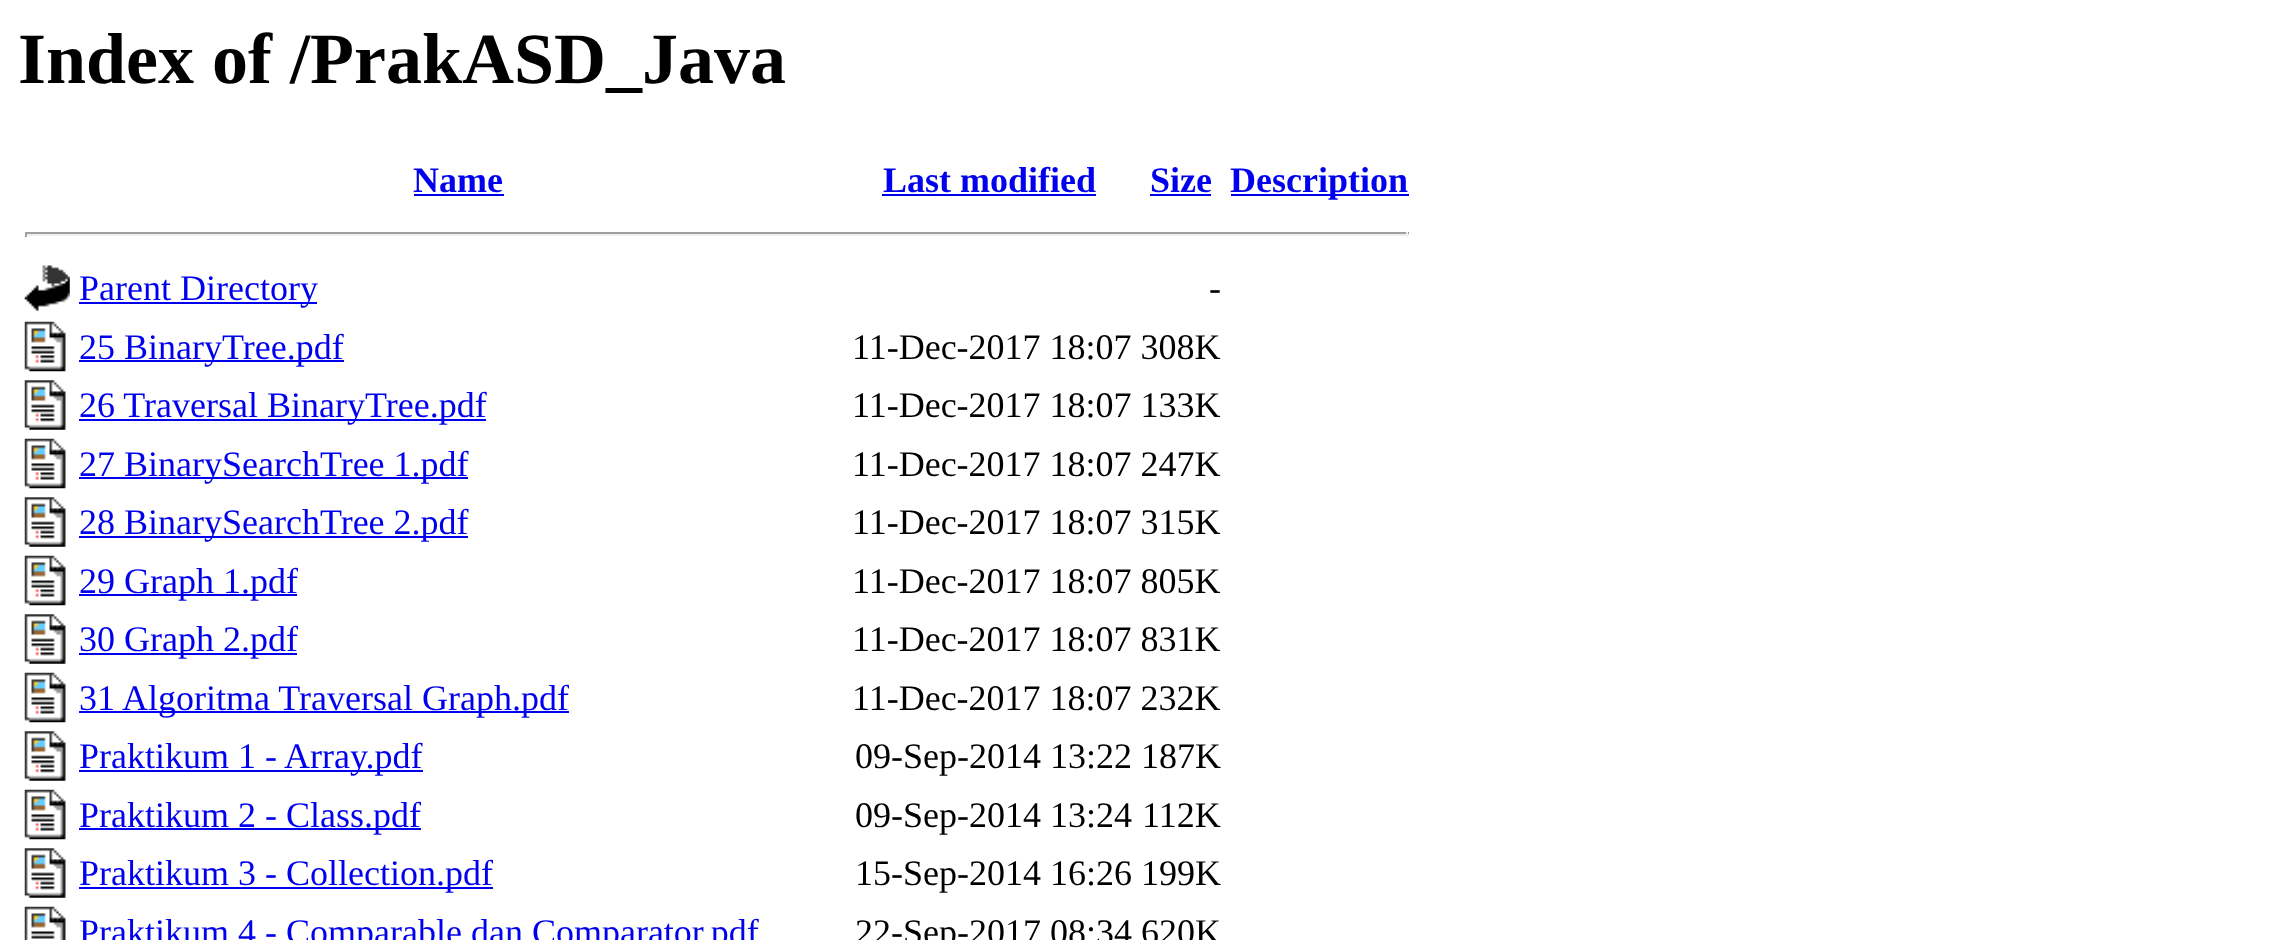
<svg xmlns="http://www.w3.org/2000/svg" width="2295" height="940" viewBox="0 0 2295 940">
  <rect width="100%" height="100%" fill="#fff"/>
  <path d="M414 194h90v2H414z" fill="#00e"/>
  <path d="M882 194h214v2H882z" fill="#00e"/>
  <path d="M1150 194h61v2H1150z" fill="#00e"/>
  <path d="M1231 194h178v2H1231z" fill="#00e"/>
  <path d="M25 232h1384v2H25z" fill="#9f9f9f"/>
  <path d="M1406 232h2v5H1406z" fill="#eee"/>
  <path d="M25 234h1384v2H25z" fill="#eee"/>
  <path d="M25 232h2v5H25z" fill="#9f9f9f"/>
  <image x="24" y="265" width="46" height="47" href="img/1.png"/>
  <path d="M79 302h238v2H79z" fill="#00e"/>
  <image x="24" y="321" width="42" height="51" href="img/2.png"/>
  <path d="M79 360h265v2H79z" fill="#00e"/>
  <image x="24" y="380" width="42" height="50" href="img/3.png"/>
  <path d="M79 419h407v2H79z" fill="#00e"/>
  <image x="24" y="438" width="42" height="51" href="img/2.png"/>
  <path d="M79 477h389v2H79z" fill="#00e"/>
  <image x="24" y="497" width="42" height="50" href="img/3.png"/>
  <path d="M79 536h389v2H79z" fill="#00e"/>
  <image x="24" y="555" width="42" height="51" href="img/4.png"/>
  <path d="M79 594h218v2H79z" fill="#00e"/>
  <image x="24" y="614" width="42" height="50" href="img/3.png"/>
  <path d="M79 653h218v2H79z" fill="#00e"/>
  <image x="24" y="672" width="42" height="51" href="img/2.png"/>
  <path d="M79 711h490v2H79z" fill="#00e"/>
  <image x="24" y="731" width="42" height="50" href="img/3.png"/>
  <path d="M79 770h344v2H79z" fill="#00e"/>
  <image x="24" y="789" width="42" height="51" href="img/2.png"/>
  <path d="M79 828h342v2H79z" fill="#00e"/>
  <image x="24" y="848" width="42" height="50" href="img/3.png"/>
  <path d="M79 887h414v2H79z" fill="#00e"/>
  <image x="24" y="906" width="42" height="34" href="img/5.png"/>
  <text x="18" y="83" font-family="Liberation Serif" font-size="72" font-weight="bold" fill="#000">Index of /PrakASD_Java</text>
  <g font-family="Liberation Serif" font-size="36" font-weight="bold" fill="#00e">
    <text x="413" y="192">Name</text>
    <text x="883" y="192">Last modified</text>
    <text x="1150" y="192">Size</text>
    <text x="1230" y="192">Description</text>
  </g>
  <text x="79" y="300" font-family="Liberation Serif" font-size="36" fill="#00e">Parent Directory</text>
  <text x="1209" y="300" font-family="Liberation Serif" font-size="36" fill="#000">-</text>
  <text x="79" y="359" font-family="Liberation Serif" font-size="36" fill="#00e">25 BinaryTree.pdf</text>
  <text x="852" y="359" font-family="Liberation Serif" font-size="36" fill="#000">11-Dec-2017 18:07 308K</text>
  <text x="79" y="417" font-family="Liberation Serif" font-size="36" fill="#00e">26 Traversal BinaryTree.pdf</text>
  <text x="852" y="417" font-family="Liberation Serif" font-size="36" fill="#000">11-Dec-2017 18:07 133K</text>
  <text x="79" y="476" font-family="Liberation Serif" font-size="36" fill="#00e">27 BinarySearchTree 1.pdf</text>
  <text x="852" y="476" font-family="Liberation Serif" font-size="36" fill="#000">11-Dec-2017 18:07 247K</text>
  <text x="79" y="534" font-family="Liberation Serif" font-size="36" fill="#00e">28 BinarySearchTree 2.pdf</text>
  <text x="852" y="534" font-family="Liberation Serif" font-size="36" fill="#000">11-Dec-2017 18:07 315K</text>
  <text x="79" y="593" font-family="Liberation Serif" font-size="36" fill="#00e">29 Graph 1.pdf</text>
  <text x="852" y="593" font-family="Liberation Serif" font-size="36" fill="#000">11-Dec-2017 18:07 805K</text>
  <text x="79" y="651" font-family="Liberation Serif" font-size="36" fill="#00e">30 Graph 2.pdf</text>
  <text x="852" y="651" font-family="Liberation Serif" font-size="36" fill="#000">11-Dec-2017 18:07 831K</text>
  <text x="79" y="710" font-family="Liberation Serif" font-size="36" fill="#00e">31 Algoritma Traversal Graph.pdf</text>
  <text x="852" y="710" font-family="Liberation Serif" font-size="36" fill="#000">11-Dec-2017 18:07 232K</text>
  <text x="79" y="768" font-family="Liberation Serif" font-size="36" fill="#00e">Praktikum 1 - Array.pdf</text>
  <text x="855" y="768" font-family="Liberation Serif" font-size="36" fill="#000">09-Sep-2014 13:22 187K</text>
  <text x="79" y="827" font-family="Liberation Serif" font-size="36" fill="#00e">Praktikum 2 - Class.pdf</text>
  <g font-family="Liberation Serif" font-size="36" fill="#000">
    <text x="855" y="827">09-Sep-2014 13:24</text>
    <text x="1142" y="827">112K</text>
  </g>
  <text x="79" y="885" font-family="Liberation Serif" font-size="36" fill="#00e">Praktikum 3 - Collection.pdf</text>
  <text x="855" y="885" font-family="Liberation Serif" font-size="36" fill="#000">15-Sep-2014 16:26 199K</text>
  <text x="79" y="944" font-family="Liberation Serif" font-size="36" fill="#00e">Praktikum 4 - Comparable dan Comparator.pdf</text>
  <text x="855" y="944" font-family="Liberation Serif" font-size="36" fill="#000">22-Sep-2017 08:34 620K</text>
</svg>
